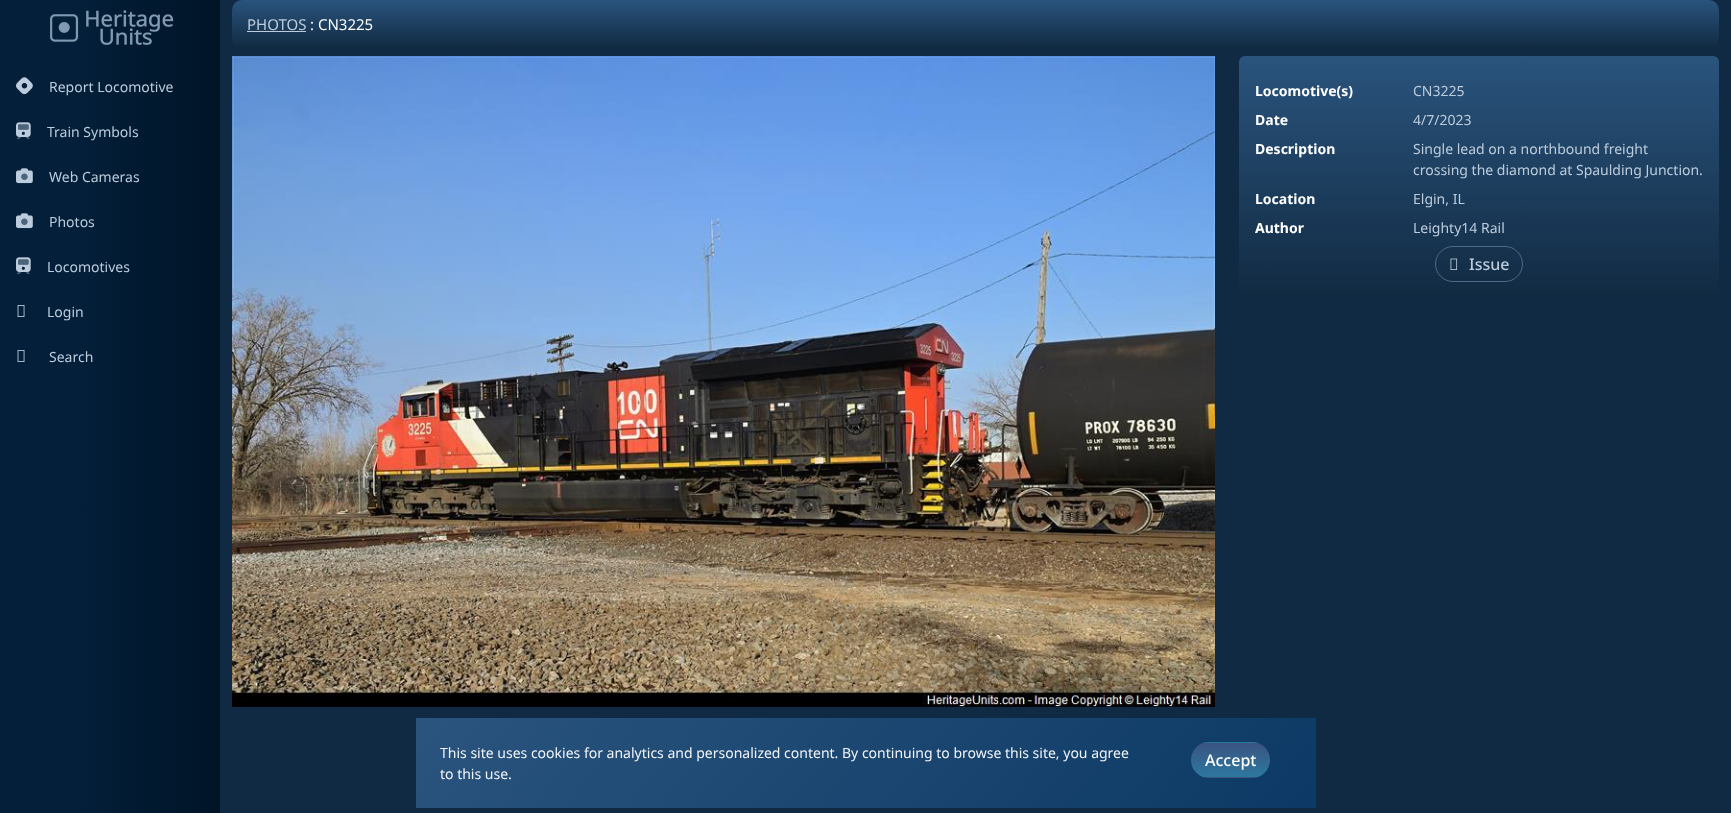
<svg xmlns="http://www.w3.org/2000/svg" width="1731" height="813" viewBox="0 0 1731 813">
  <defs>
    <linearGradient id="g1" gradientUnits="userSpaceOnUse" x1="0" y1="408" x2="220" y2="408"><stop offset="0.35" stop-color="#031f39"/><stop offset="1" stop-color="#001427"/></linearGradient>
    <linearGradient id="g2" gradientUnits="userSpaceOnUse" x1="976" y1="0" x2="976" y2="48"><stop offset="0" stop-color="#2a547d"/><stop offset="1" stop-color="#112a42"/></linearGradient>
    <linearGradient id="g3" gradientUnits="userSpaceOnUse" x1="1479" y1="56" x2="1479" y2="298"><stop offset="0" stop-color="#2a547d"/><stop offset="1" stop-color="#112a42"/></linearGradient>
    <linearGradient id="g4" gradientUnits="userSpaceOnUse" x1="587" y1="521" x2="1145" y2="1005"><stop offset="0" stop-color="#2a547d"/><stop offset="1" stop-color="#0c3965"/></linearGradient>
    <clipPath id="clip1"><rect x="1191" y="742" width="79" height="36" rx="18"/></clipPath>
    <linearGradient id="g5" gradientUnits="userSpaceOnUse" x1="1231" y1="743" x2="1231" y2="709"><stop offset="0" stop-color="#2c789f"/><stop offset="1" stop-color="#3b5481"/></linearGradient>
    <linearGradient id="g6" gradientUnits="userSpaceOnUse" x1="1231" y1="777" x2="1231" y2="743"><stop offset="0" stop-color="#2c789f"/><stop offset="1" stop-color="#3b5481"/></linearGradient>
    <linearGradient id="g7" gradientUnits="userSpaceOnUse" x1="1231" y1="811" x2="1231" y2="777"><stop offset="0" stop-color="#2c789f"/><stop offset="1" stop-color="#3b5481"/></linearGradient>
  </defs>
  <rect width="100%" height="100%" fill="#102a43"/>
  <path d="M0 0h220v813H0z" fill="url(#g1)"/>
  <image x="49" y="10" width="125" height="35" href="img/1.png"/>
  <image x="16" y="77" width="17" height="18" href="img/2.png"/>
  <image x="16" y="122" width="15" height="15" href="img/3.png"/>
  <image x="17" y="124" width="13" height="16" href="img/4.png"/>
  <image x="16" y="168" width="17" height="16" href="img/5.png"/>
  <image x="21" y="173" width="7" height="7" href="img/6.png"/>
  <image x="16" y="213" width="17" height="16" href="img/5.png"/>
  <image x="21" y="218" width="7" height="7" href="img/6.png"/>
  <image x="16" y="257" width="15" height="15" href="img/3.png"/>
  <image x="17" y="259" width="13" height="16" href="img/4.png"/>
  <image x="17" y="305" width="8" height="12" href="img/7.png"/>
  <image x="17" y="350" width="8" height="12" href="img/7.png"/>
  <rect x="232" width="1487" height="48" rx="10" fill="url(#g2)"/>
  <path d="M247 31h59v1H247z" fill="#bcccdc"/>
  <image x="232" y="56" width="983" height="651" href="img/8.png"/>
  <rect x="1239" y="56" width="480" height="242" rx="6" fill="url(#g3)"/>
  <rect x="1435.5" y="246.5" width="87" height="35" rx="17.5" fill="none" stroke="#4f6988"/>
  <image x="1450" y="258" width="8" height="12" href="img/9.png"/>
  <path d="M416 718h900v90H416z" fill="url(#g4)"/>
  <g clip-path="url(#clip1)">
    <path d="M1203 742h55v1H1203z" fill="url(#g5)"/>
    <path d="M1191 743h79v34H1191z" fill="url(#g6)"/>
    <path d="M1203 777h55v1H1203z" fill="url(#g7)"/>
  </g>
  <g font-family="Noto Sans" font-size="14" fill="#bcccdc">
    <text x="49" y="92">Report Locomotive</text>
    <text x="47" y="137">Train Symbols</text>
    <text x="49" y="182">Web Cameras</text>
    <text x="49" y="227">Photos</text>
    <text x="47" y="272">Locomotives</text>
    <text x="47" y="317">Login</text>
    <text x="49" y="362">Search</text>
  </g>
  <text x="247" y="30" font-family="Noto Sans" font-size="15" fill="#bcccdc">PHOTOS</text>
  <text x="310" y="30" font-family="Noto Sans" font-size="15" fill="#fff">: CN3225</text>
  <text x="1255" y="96" font-family="Noto Sans" font-size="14" font-weight="bold" fill="#fff">Locomotive(s)</text>
  <text x="1413" y="96" font-family="Noto Sans" font-size="14" fill="#bcccdc">CN3225</text>
  <text x="1255" y="125" font-family="Noto Sans" font-size="14" font-weight="bold" fill="#fff">Date</text>
  <text x="1413" y="125" font-family="Noto Sans" font-size="14" fill="#bcccdc">4/7/2023</text>
  <text x="1255" y="154" font-family="Noto Sans" font-size="14" font-weight="bold" fill="#fff">Description</text>
  <g font-family="Noto Sans" font-size="14" fill="#bcccdc">
    <text x="1413" y="154">Single lead on a northbound freight</text>
    <text x="1413" y="175">crossing the diamond at Spaulding Junction.</text>
  </g>
  <text x="1255" y="204" font-family="Noto Sans" font-size="14" font-weight="bold" fill="#fff">Location</text>
  <text x="1413" y="204" font-family="Noto Sans" font-size="14" fill="#bcccdc">Elgin, IL</text>
  <text x="1255" y="233" font-family="Noto Sans" font-size="14" font-weight="bold" fill="#fff">Author</text>
  <text x="1413" y="233" font-family="Noto Sans" font-size="14" fill="#bcccdc">Leighty14 Rail</text>
  <text x="1469" y="270" font-family="Noto Sans" font-size="16" font-weight="500" fill="#bcccdc">Issue</text>
  <g font-family="Noto Sans" font-size="14" fill="#f0f4f8">
    <text x="440" y="758">This site uses cookies for analytics and personalized content. By continuing to browse this site, you agree</text>
    <text x="440" y="779">to this use.</text>
  </g>
  <text x="1205" y="766" font-family="Noto Sans" font-size="16" font-weight="500" fill="#fff">Accept</text>
</svg>
